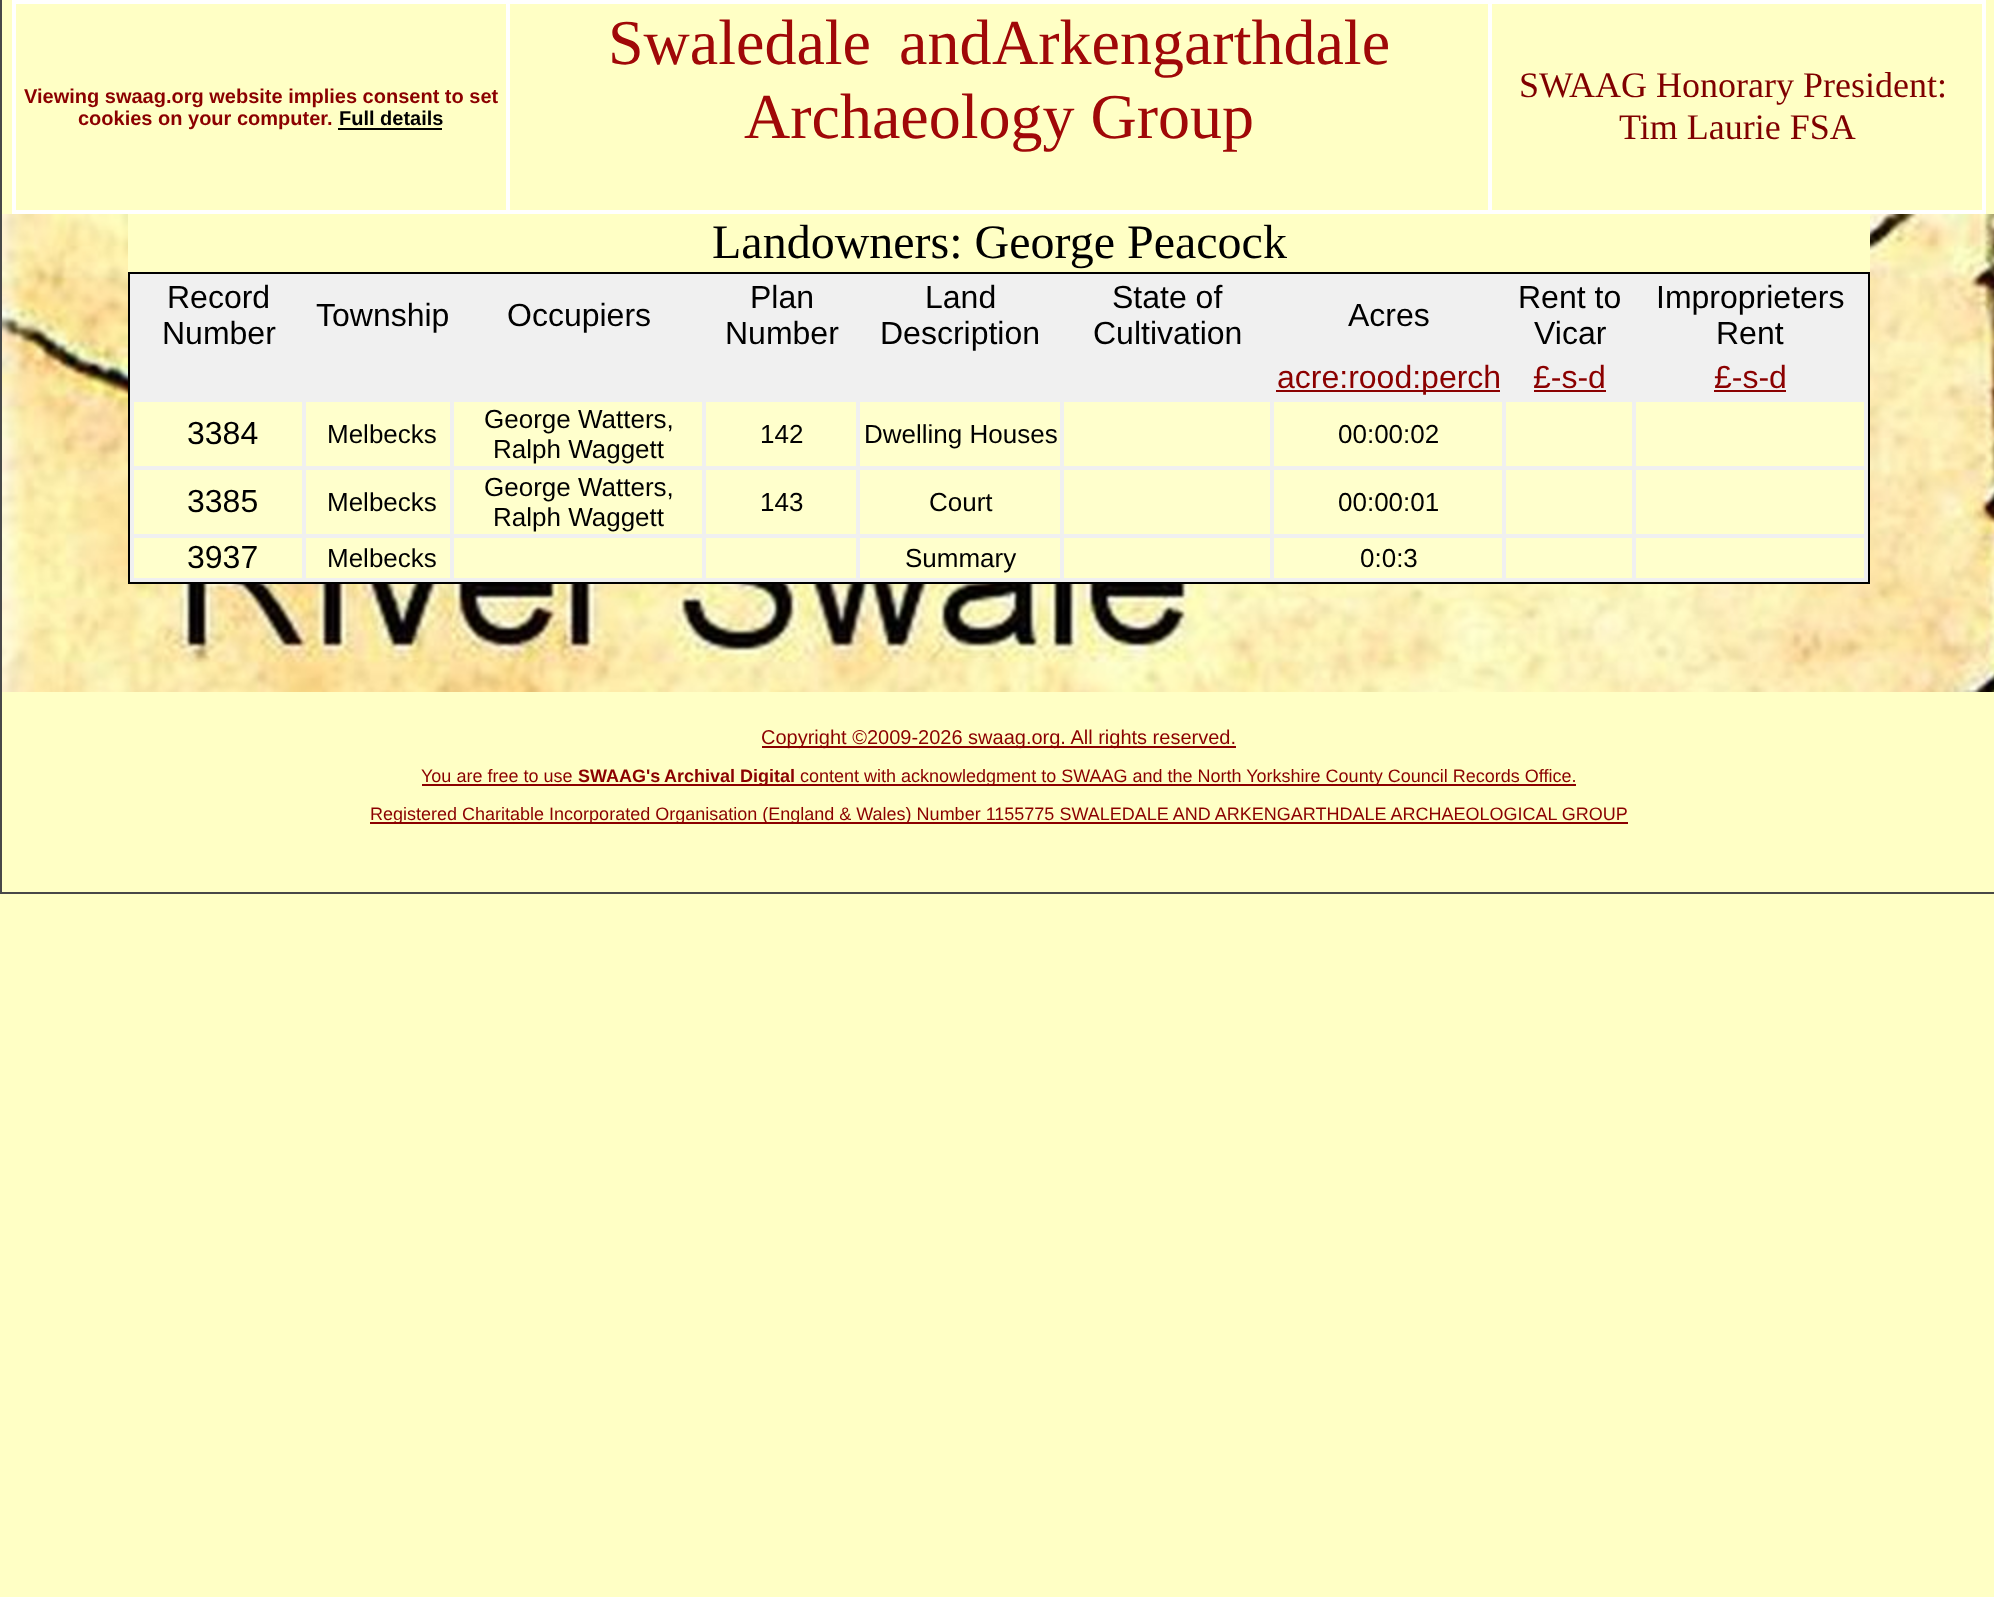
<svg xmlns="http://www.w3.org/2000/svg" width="1994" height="1597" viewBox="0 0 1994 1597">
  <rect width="100%" height="100%" fill="#ffffc5"/>
  <path d="M0 892h1994v2H0z" fill="#484848"/>
  <path d="M0 0h2v894H0z" fill="#484848"/>
  <path d="M12 0h1974v214H12z" fill="#fff"/>
  <path d="M16 4h490v206H16z" fill="#ffffc5"/>
  <path d="M338 128h104v2H338z" fill="#000"/>
  <path d="M510 4h978v206H510z" fill="#ffffc5"/>
  <path d="M1492 4h490v206H1492z" fill="#ffffc5"/>
  <image x="2" y="214" width="1992" height="478" href="img/1.png"/>
  <path d="M128 214h1742v58H128z" fill="#ffffc5"/>
  <path d="M129 273h1740v310H129z" fill="#f0f0f0" stroke="#000" stroke-width="2"/>
  <path d="M1276 390h224v2H1276z" fill="#8b0000"/>
  <path d="M1534 390h72v2H1534z" fill="#8b0000"/>
  <path d="M1714 390h72v2H1714z" fill="#8b0000"/>
  <path d="M134 402h168v64H134z" fill="#ffc"/>
  <path d="M306 402h144v64H306z" fill="#ffc"/>
  <path d="M454 402h248v64H454z" fill="#ffc"/>
  <path d="M706 402h150v64H706z" fill="#ffc"/>
  <path d="M860 402h200v64H860z" fill="#ffc"/>
  <path d="M1064 402h206v64H1064z" fill="#ffc"/>
  <path d="M1274 402h228v64H1274z" fill="#ffc"/>
  <path d="M1506 402h126v64H1506z" fill="#ffc"/>
  <path d="M1636 402h228v64H1636z" fill="#ffc"/>
  <path d="M134 470h168v64H134z" fill="#ffc"/>
  <path d="M306 470h144v64H306z" fill="#ffc"/>
  <path d="M454 470h248v64H454z" fill="#ffc"/>
  <path d="M706 470h150v64H706z" fill="#ffc"/>
  <path d="M860 470h200v64H860z" fill="#ffc"/>
  <path d="M1064 470h206v64H1064z" fill="#ffc"/>
  <path d="M1274 470h228v64H1274z" fill="#ffc"/>
  <path d="M1506 470h126v64H1506z" fill="#ffc"/>
  <path d="M1636 470h228v64H1636z" fill="#ffc"/>
  <path d="M134 538h168v40H134z" fill="#ffc"/>
  <path d="M306 538h144v40H306z" fill="#ffc"/>
  <path d="M454 538h248v40H454z" fill="#ffc"/>
  <path d="M706 538h150v40H706z" fill="#ffc"/>
  <path d="M860 538h200v40H860z" fill="#ffc"/>
  <path d="M1064 538h206v40H1064z" fill="#ffc"/>
  <path d="M1274 538h228v40H1274z" fill="#ffc"/>
  <path d="M1506 538h126v40H1506z" fill="#ffc"/>
  <path d="M1636 538h228v40H1636z" fill="#ffc"/>
  <path d="M762 746h474v2H762z" fill="#8b0000"/>
  <path d="M422 784h1154v2H422z" fill="#8b0000"/>
  <path d="M370 822h1258v2H370z" fill="#8b0000"/>
  <g font-family="Liberation Sans" font-size="20" font-weight="bold" fill="#8b0000">
    <text x="24" y="103">Viewing swaag.org website implies consent to set</text>
    <text x="78" y="125">cookies on your computer.</text>
  </g>
  <text x="339" y="125" font-family="Liberation Sans" font-size="20" font-weight="bold" fill="#000">Full details</text>
  <g font-family="Liberation Serif" font-size="64" fill="#a00808">
    <text x="608" y="64" word-spacing="12">Swaledale and</text>
    <text x="992" y="64">Arkengarthdale</text>
    <text x="744" y="138">Archaeology Group</text>
  </g>
  <g font-family="Liberation Serif" font-size="36" fill="#800000">
    <text x="1519" y="97">SWAAG Honorary President:</text>
    <text x="1619" y="139">Tim Laurie FSA</text>
  </g>
  <text x="712" y="258" font-family="Liberation Serif" font-size="48" fill="#000">Landowners: George Peacock</text>
  <g font-family="Liberation Sans" font-size="32" fill="#000">
    <text x="167" y="308">Record</text>
    <text x="162" y="344">Number</text>
    <text x="316" y="326">Township</text>
    <text x="507" y="326">Occupiers</text>
    <text x="750" y="308">Plan</text>
    <text x="725" y="344">Number</text>
    <text x="925" y="308">Land</text>
    <text x="880" y="344">Description</text>
    <text x="1112" y="308">State of</text>
    <text x="1093" y="344">Cultivation</text>
    <text x="1348" y="326">Acres</text>
    <text x="1518" y="308">Rent to</text>
    <text x="1534" y="344">Vicar</text>
    <text x="1656" y="308">Improprieters</text>
    <text x="1716" y="344">Rent</text>
  </g>
  <g font-family="Liberation Sans" font-size="32" fill="#8b0000">
    <text x="1277" y="388">acre:rood:perch</text>
    <text x="1533" y="388">£-s-d</text>
    <text x="1714" y="388">£-s-d</text>
  </g>
  <text x="187" y="444" font-family="Liberation Sans" font-size="32" fill="#000">3384</text>
  <g font-family="Liberation Sans" font-size="26" fill="#000">
    <text x="327" y="443">Melbecks</text>
    <text x="484" y="428">George Watters,</text>
    <text x="493" y="458">Ralph Waggett</text>
    <text x="760" y="443">142</text>
    <text x="864" y="443">Dwelling Houses</text>
    <text x="1338" y="443">00:00:02</text>
  </g>
  <text x="187" y="512" font-family="Liberation Sans" font-size="32" fill="#000">3385</text>
  <g font-family="Liberation Sans" font-size="26" fill="#000">
    <text x="327" y="511">Melbecks</text>
    <text x="484" y="496">George Watters,</text>
    <text x="493" y="526">Ralph Waggett</text>
    <text x="760" y="511">143</text>
    <text x="929" y="511">Court</text>
    <text x="1338" y="511">00:00:01</text>
  </g>
  <text x="187" y="568" font-family="Liberation Sans" font-size="32" fill="#000">3937</text>
  <g font-family="Liberation Sans" font-size="26" fill="#000">
    <text x="327" y="567">Melbecks</text>
    <text x="905" y="567">Summary</text>
    <text x="1360" y="567">0:0:3</text>
  </g>
  <text x="761" y="744" font-family="Liberation Sans" font-size="20" fill="#8b0000">Copyright ©2009-2026 swaag.org. All rights reserved.</text>
  <text x="421" y="782" font-family="Liberation Sans" font-size="18" fill="#8b0000">You are free to use</text>
  <g font-family="Liberation Sans" font-size="18" font-weight="bold" fill="#8b0000">
    <text x="578" y="782">SWAAG's</text>
    <text x="664" y="782">Archival Digital</text>
  </g>
  <g font-family="Liberation Sans" font-size="18" fill="#8b0000">
    <text x="800" y="782">content with acknowledgment to SWAAG and the North Yorkshire County Council Records Office.</text>
    <text x="370" y="820">Registered Charitable Incorporated Organisation (England &amp; Wales) Number 1155775 SWALEDALE AND ARKENGARTHDALE ARCHAEOLOGICAL GROUP</text>
  </g>
</svg>
